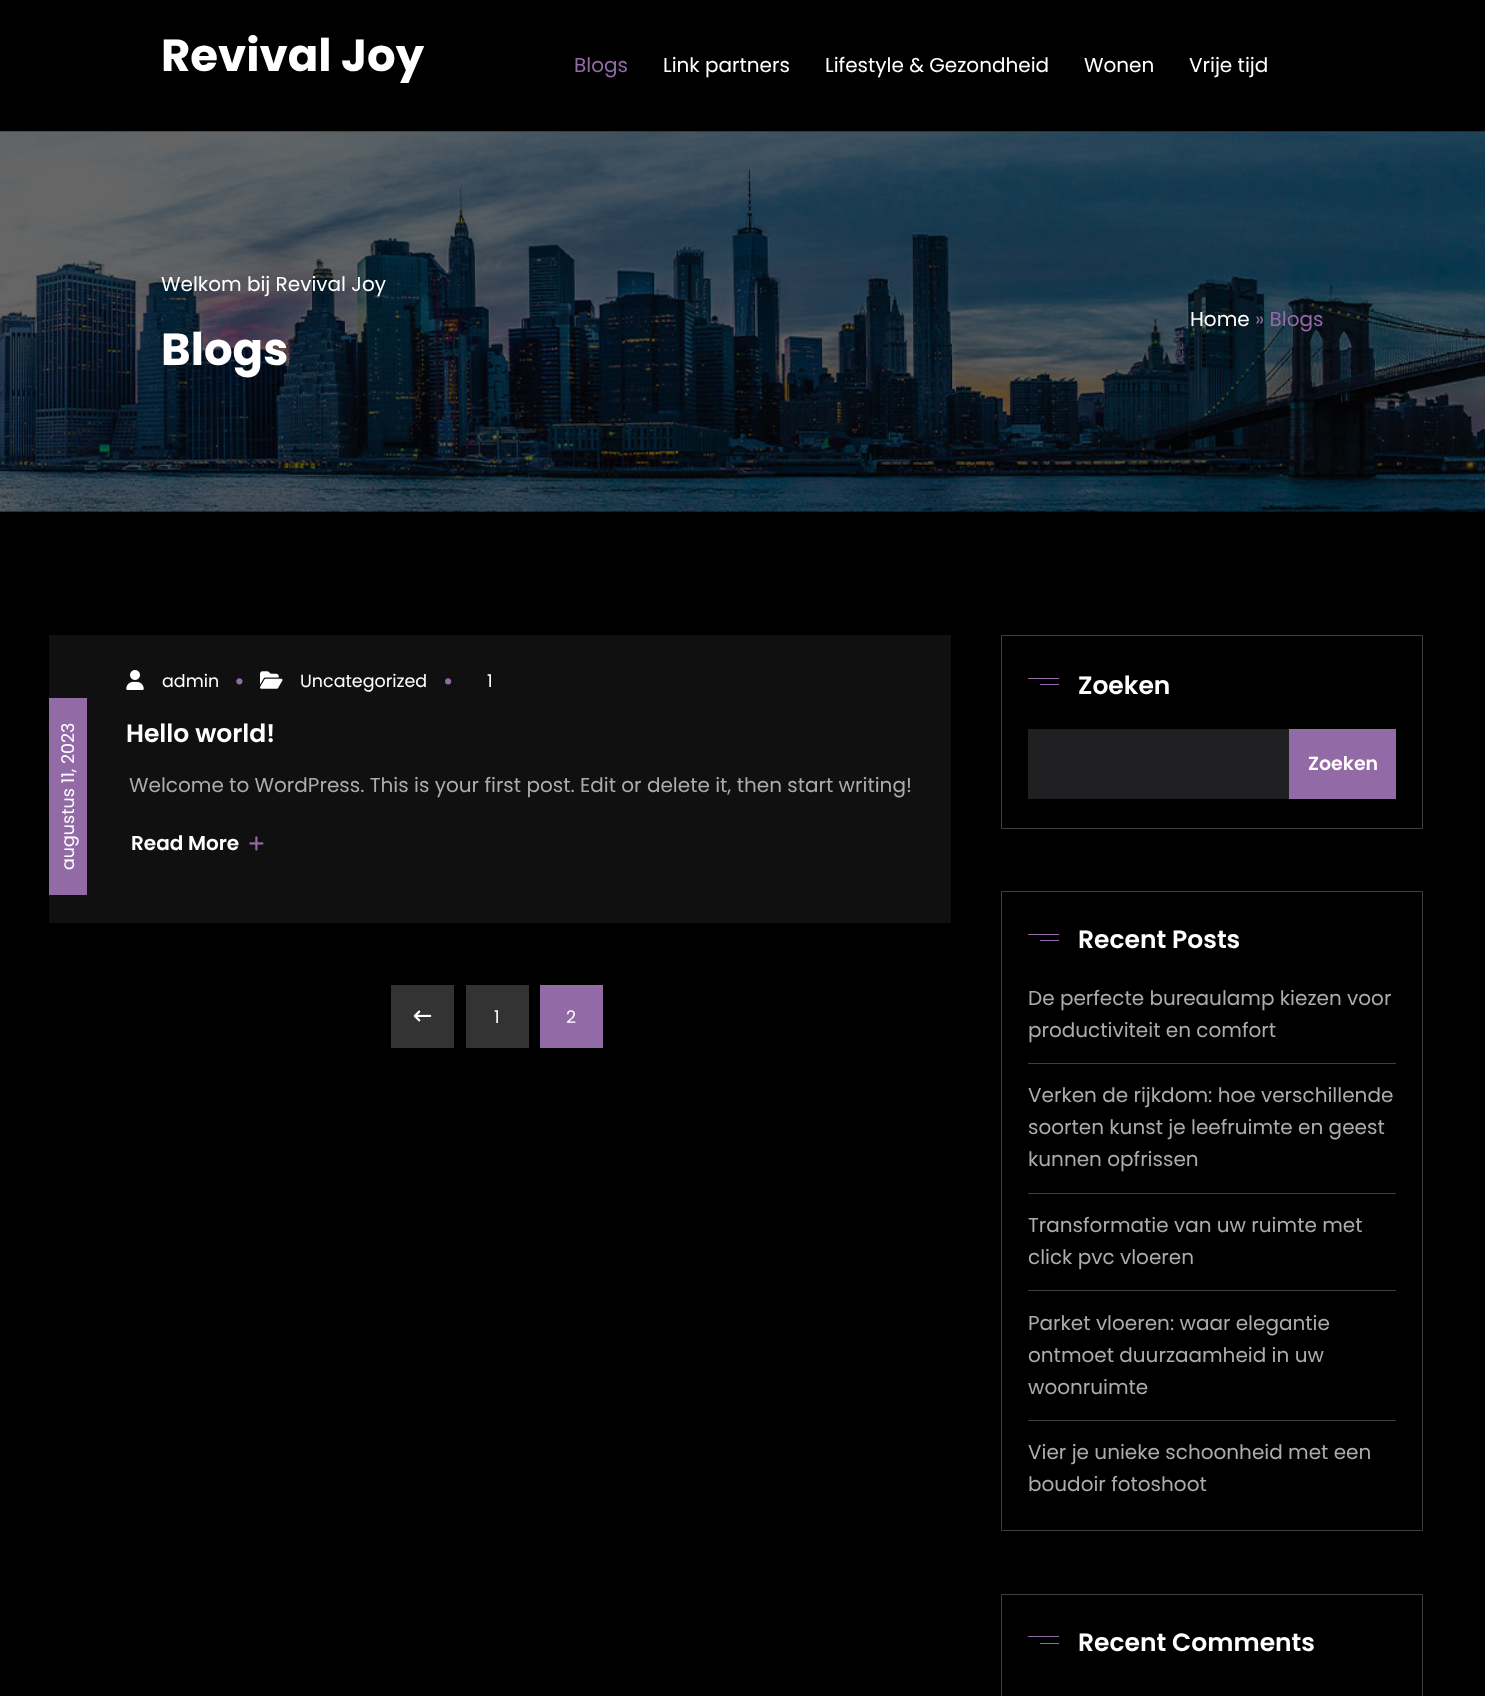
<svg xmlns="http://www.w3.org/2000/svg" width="1485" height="1696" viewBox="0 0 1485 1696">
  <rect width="100%" height="100%" fill="#000"/>
  <image x="0" y="131" width="1485" height="381" href="img/1.png"/>
  <path d="M49 635h902v288H49z" fill="#101010"/>
  <image x="126" y="670" width="18" height="20" href="img/2.png"/>
  <image x="236" y="678" width="7" height="7" href="img/3.png"/>
  <image x="260" y="671" width="23" height="18" href="img/4.png"/>
  <image x="445" y="678" width="7" height="7" href="img/5.png"/>
  <path d="M49 698h38v197H49z" fill="#926aa6"/>
  <image x="249" y="836" width="15" height="15" href="img/6.png"/>
  <path d="M391 985h63v63H391z" fill="#333"/>
  <image x="413" y="1010" width="19" height="12" href="img/7.png"/>
  <path d="M466 985h63v63H466z" fill="#333"/>
  <path d="M540 985h63v63H540z" fill="#926aa6"/>
  <path d="M1001.5 635.5h421v193H1001.5z" fill="none" stroke="#3f3f3f"/>
  <path d="M1028 678h31v1H1028z" fill="#926aa6"/>
  <path d="M1040 684h19v1H1040z" fill="#926aa6"/>
  <path d="M1028 729h261v70H1028z" fill="#202022"/>
  <path d="M1289 729h107v70H1289z" fill="#926aa6"/>
  <path d="M1001.5 891.5h421v639H1001.5z" fill="none" stroke="#3f3f3f"/>
  <path d="M1028 934h31v1H1028z" fill="#926aa6"/>
  <path d="M1040 940h19v1H1040z" fill="#926aa6"/>
  <path d="M1028 1063h368v1H1028z" fill="#3f3f3f"/>
  <path d="M1028 1193h368v1H1028z" fill="#3f3f3f"/>
  <path d="M1028 1290h368v1H1028z" fill="#3f3f3f"/>
  <path d="M1028 1420h368v1H1028z" fill="#3f3f3f"/>
  <path d="M1001.5 1594.5h421v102H1001.5z" fill="none" stroke="#3f3f3f"/>
  <path d="M1028 1636h31v1H1028z" fill="#926aa6"/>
  <path d="M1040 1643h19v1H1040z" fill="#926aa6"/>
  <text x="161" y="71" font-family="Poppins" font-size="45" font-weight="bold" fill="#fff">Revival Joy</text>
  <text x="574" y="72" font-family="Poppins" font-size="20" fill="#926aa6">Blogs</text>
  <g font-family="Poppins" font-size="20" fill="#fff">
    <text x="663" y="72">Link partners</text>
    <text x="825" y="72">Lifestyle &amp; Gezondheid</text>
    <text x="1084" y="72">Wonen</text>
    <text x="1189" y="72">Vrije tijd</text>
    <text x="161" y="291">Welkom bij Revival Joy</text>
  </g>
  <text x="161" y="365" font-family="Poppins" font-size="45" font-weight="bold" fill="#fff">Blogs</text>
  <text x="1190" y="326" font-family="Poppins" font-size="20" fill="#fff">Home</text>
  <text x="1255" y="326" font-family="Poppins" font-size="20" fill="#926aa6">» Blogs</text>
  <g font-family="Poppins" font-size="17.5" fill="#fff">
    <text x="162" y="687">admin</text>
    <text x="300" y="687">Uncategorized</text>
    <text x="487" y="687">1</text>
    <text x="74" y="870" transform="rotate(-90 74 870)">augustus 11, 2023</text>
  </g>
  <text x="126" y="742" font-family="Poppins" font-size="25" font-weight="600" fill="#fff">Hello world!</text>
  <text x="129" y="792" font-family="Poppins" font-size="20" fill="#acacac">Welcome to WordPress. This is your first post. Edit or delete it, then start writing!</text>
  <text x="131" y="850" font-family="Poppins" font-size="20" font-weight="600" fill="#fff">Read More</text>
  <g font-family="Poppins" font-size="17.5" fill="#fff">
    <text x="494" y="1023">1</text>
    <text x="566" y="1023">2</text>
  </g>
  <text x="1078" y="694" font-family="Poppins" font-size="25" font-weight="600" fill="#fff">Zoeken</text>
  <text x="1308" y="770" font-family="Poppins" font-size="19" font-weight="600" fill="#fff">Zoeken</text>
  <text x="1078" y="948" font-family="Poppins" font-size="25" font-weight="600" fill="#fff">Recent Posts</text>
  <g font-family="Poppins" font-size="20" fill="#acacac">
    <text x="1028" y="1005">De perfecte bureaulamp kiezen voor</text>
    <text x="1028" y="1037">productiviteit en comfort</text>
    <text x="1028" y="1102">Verken de rijkdom: hoe verschillende</text>
    <text x="1028" y="1134">soorten kunst je leefruimte en geest</text>
    <text x="1028" y="1166">kunnen opfrissen</text>
    <text x="1028" y="1232">Transformatie van uw ruimte met</text>
    <text x="1028" y="1264">click pvc vloeren</text>
    <text x="1028" y="1330">Parket vloeren: waar elegantie</text>
    <text x="1028" y="1362">ontmoet duurzaamheid in uw</text>
    <text x="1028" y="1394">woonruimte</text>
    <text x="1028" y="1459">Vier je unieke schoonheid met een</text>
    <text x="1028" y="1491">boudoir fotoshoot</text>
  </g>
  <text x="1078" y="1651" font-family="Poppins" font-size="25" font-weight="600" fill="#fff">Recent Comments</text>
</svg>
